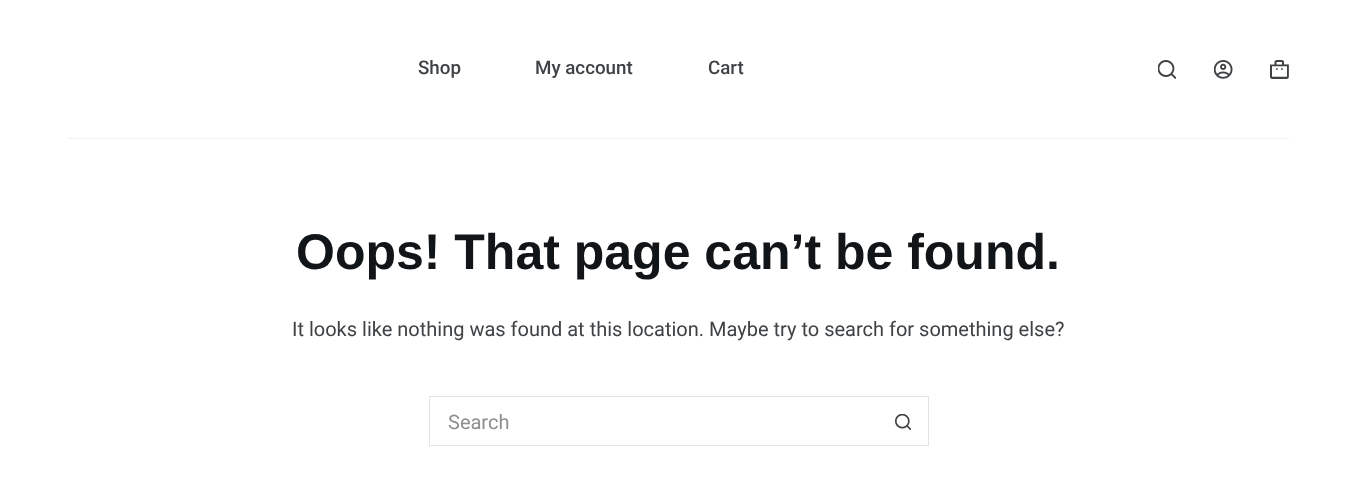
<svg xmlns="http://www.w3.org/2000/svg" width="1356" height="480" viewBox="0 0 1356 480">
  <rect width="100%" height="100%" fill="#fff"/>
  <path d="M68 138h1221v1H68z" fill="#f2f2f2"/>
  <image x="1158" y="60" width="18" height="19" href="img/1.png"/>
  <image x="1214" y="60" width="19" height="19" href="img/2.png"/>
  <image x="1270" y="60" width="19" height="19" href="img/3.png"/>
  <path d="M429 396h500v1H429z" fill="#e0e5eb"/>
  <path d="M429 445h450v1H429z" fill="#e0e5eb"/>
  <path d="M429 396h1v50H429z" fill="#e0e5eb"/>
  <path d="M928 396h1v50H928z" fill="#e0e5eb"/>
  <path d="M879 445h50v1H879z" fill="#e0e5eb"/>
  <image x="895" y="414" width="16" height="16" href="img/4.png"/>
  <g font-family="Roboto" font-size="18.75" font-weight="500" fill="#3f4245">
    <text x="418" y="74">Shop</text>
    <text x="535" y="74">My account</text>
    <text x="708" y="74">Cart</text>
  </g>
  <text x="296" y="269" font-family="Liberation Sans" font-size="50" font-weight="bold" fill="#111518">Oops! That page can’t be found.</text>
  <text x="292" y="336" font-family="Roboto" font-size="20" fill="#3f4245">It looks like nothing was found at this location. Maybe try to search for something else?</text>
  <text x="448" y="429" font-family="Roboto" font-size="20" fill="#8c8e8f">Search</text>
</svg>
